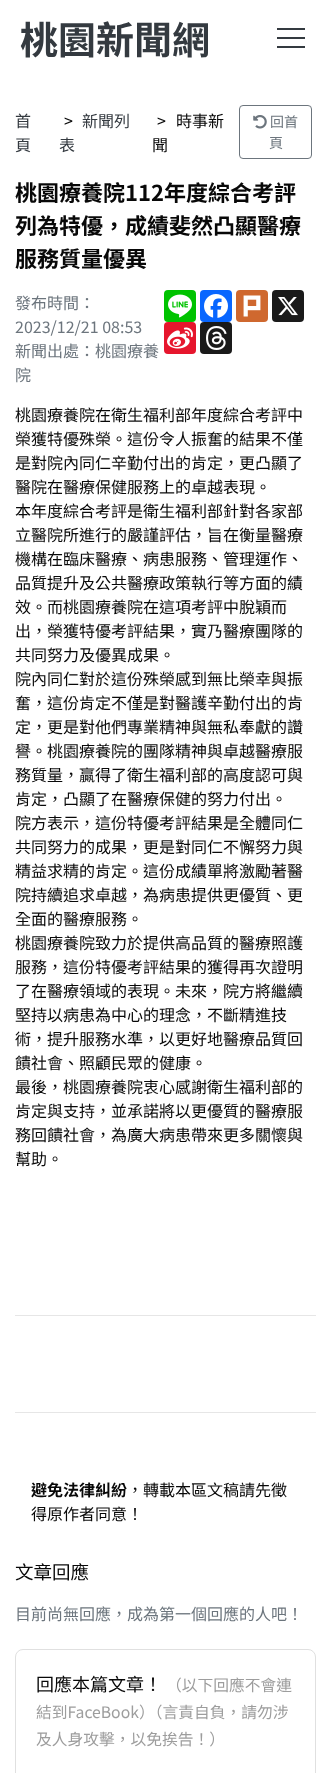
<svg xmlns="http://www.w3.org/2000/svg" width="331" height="1773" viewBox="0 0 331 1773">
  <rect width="100%" height="100%" fill="#fff"/>
  <path d="M277 37h28v2H277z" fill="#343a40"/>
  <path d="M277 28h28v2H277z" fill="#343a40"/>
  <path d="M277 46h28v2H277z" fill="#343a40"/>
  <rect x="239.5" y="105.5" width="72" height="53" rx="3.5" fill="none" stroke="#6c757d"/>
  <image x="253" y="115" width="14" height="14" href="img/1.png"/>
  <rect x="164" y="290" width="32" height="32" rx="4" fill="#00c300"/>
  <image x="168" y="294" width="24" height="24" href="img/2.png"/>
  <rect x="200" y="290" width="32" height="32" rx="4" fill="#0866ff"/>
  <image x="204" y="294" width="24" height="24" href="img/3.png"/>
  <rect x="236" y="290" width="32" height="32" rx="4" fill="#cf682f"/>
  <image x="243" y="295" width="18" height="22" href="img/4.png"/>
  <rect x="272" y="290" width="32" height="32" rx="4" fill="#1a1a1a"/>
  <image x="278" y="297" width="20" height="19" href="img/5.png"/>
  <rect x="164" y="322" width="32" height="32" rx="4" fill="#e6162d"/>
  <image x="167" y="327" width="26" height="22" href="img/6.png"/>
  <rect x="200" y="322" width="32" height="32" rx="4" fill="#1a1a1a"/>
  <image x="206" y="326" width="21" height="24" href="img/7.png"/>
  <path d="M15 1315h301v1H15z" fill="#e6e6e6"/>
  <path d="M15 1412h301v1H15z" fill="#e6e6e6"/>
  <rect x="15.5" y="1649.5" width="300" height="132" rx="7.5" fill="none" stroke="#e0e0e0"/>
  <text x="20" y="54" font-family="Noto Sans TC" font-size="38" font-weight="bold" fill="#343a40">桃園新聞網</text>
  <g font-family="Noto Sans TC" font-size="16" fill="#343a40">
    <text x="15" y="127">首</text>
    <text x="15" y="151">頁</text>
  </g>
  <text x="64" y="127" font-family="Noto Sans TC" font-size="16" fill="#080808">&gt;</text>
  <g font-family="Noto Sans TC" font-size="16" fill="#343a40">
    <text x="82" y="127">新聞列</text>
    <text x="59" y="151">表</text>
  </g>
  <g font-family="Noto Sans TC" font-size="16" fill="#080808">
    <text x="157" y="127">&gt;</text>
    <text x="176" y="127">時事新</text>
    <text x="152" y="151">聞</text>
  </g>
  <g font-family="Noto Sans TC" font-size="14" fill="#6c757d">
    <text x="270" y="127">回首</text>
    <text x="269" y="148">頁</text>
  </g>
  <g font-family="Noto Sans TC" font-size="22" font-weight="bold" fill="#080808">
    <text x="15" y="201">桃園療養院112年度綜合考評</text>
    <text x="15" y="234">列為特優，成績斐然凸顯醫療</text>
    <text x="15" y="267">服務質量優異</text>
  </g>
  <g font-family="Noto Sans TC" font-size="16" fill="#6c757d">
    <text x="15" y="309">發布時間：</text>
    <text x="15" y="333">2023/12/21 08:53</text>
    <text x="15" y="357">新聞出處：桃園療養</text>
    <text x="15" y="381">院</text>
  </g>
  <g font-family="Noto Sans TC" font-size="16" fill="#080808">
    <text x="15" y="421">桃園療養院在衛生福利部年度綜合考評中</text>
    <text x="15" y="445">榮獲特優殊榮。這份令人振奮的結果不僅</text>
    <text x="15" y="469">是對院內同仁辛勤付出的肯定，更凸顯了</text>
    <text x="15" y="493">醫院在醫療保健服務上的卓越表現。</text>
    <text x="15" y="517">本年度綜合考評是衛生福利部針對各家部</text>
    <text x="15" y="541">立醫院所進行的嚴謹評估，旨在衡量醫療</text>
    <text x="15" y="565">機構在臨床醫療、病患服務、管理運作、</text>
    <text x="15" y="589">品質提升及公共醫療政策執行等方面的績</text>
    <text x="15" y="613">效。而桃園療養院在這項考評中脫穎而</text>
    <text x="15" y="637">出，榮獲特優考評結果，實乃醫療團隊的</text>
    <text x="15" y="661">共同努力及優異成果。</text>
    <text x="15" y="685">院內同仁對於這份殊榮感到無比榮幸與振</text>
    <text x="15" y="709">奮，這份肯定不僅是對醫護辛勤付出的肯</text>
    <text x="15" y="733">定，更是對他們專業精神與無私奉獻的讚</text>
    <text x="15" y="757">譽。桃園療養院的團隊精神與卓越醫療服</text>
    <text x="15" y="781">務質量，贏得了衛生福利部的高度認可與</text>
    <text x="15" y="805">肯定，凸顯了在醫療保健的努力付出。</text>
    <text x="15" y="829">院方表示，這份特優考評結果是全體同仁</text>
    <text x="15" y="853">共同努力的成果，更是對同仁不懈努力與</text>
    <text x="15" y="877">精益求精的肯定。這份成績單將激勵著醫</text>
    <text x="15" y="901">院持續追求卓越，為病患提供更優質、更</text>
    <text x="15" y="925">全面的醫療服務。</text>
    <text x="15" y="949">桃園療養院致力於提供高品質的醫療照護</text>
    <text x="15" y="973">服務，這份特優考評結果的獲得再次證明</text>
    <text x="15" y="997">了在醫療領域的表現。未來，院方將繼續</text>
    <text x="15" y="1021">堅持以病患為中心的理念，不斷精進技</text>
    <text x="15" y="1045">術，提升服務水準，以更好地醫療品質回</text>
    <text x="15" y="1069">饋社會、照顧民眾的健康。</text>
    <text x="15" y="1093">最後，桃園療養院衷心感謝衛生福利部的</text>
    <text x="15" y="1117">肯定與支持，並承諾將以更優質的醫療服</text>
    <text x="15" y="1141">務回饋社會，為廣大病患帶來更多關懷與</text>
    <text x="15" y="1165">幫助。</text>
  </g>
  <text x="31" y="1496" font-family="Noto Sans TC" font-size="16" font-weight="bold" fill="#080808">避免法律糾紛</text>
  <g font-family="Noto Sans TC" font-size="16" fill="#080808">
    <text x="127" y="1496">，轉載本區文稿請先徵</text>
    <text x="31" y="1520">得原作者同意！</text>
  </g>
  <text x="15" y="1579" font-family="Noto Sans TC" font-size="18.5" fill="#080808">文章回應</text>
  <text x="15" y="1620" font-family="Noto Sans TC" font-size="16" fill="#6c757d">目前尚無回應，成為第一個回應的人吧！</text>
  <text x="36" y="1691" font-family="Noto Sans TC" font-size="18" fill="#080808">回應本篇文章！</text>
  <g font-family="Noto Sans TC" font-size="15.75" fill="#9d9d9d">
    <text x="166" y="1691">（以下回應不會連</text>
    <text x="36" y="1718">結到FaceBook）（言責自負，請勿涉</text>
    <text x="36" y="1745">及人身攻擊，以免挨告！）</text>
  </g>
</svg>
